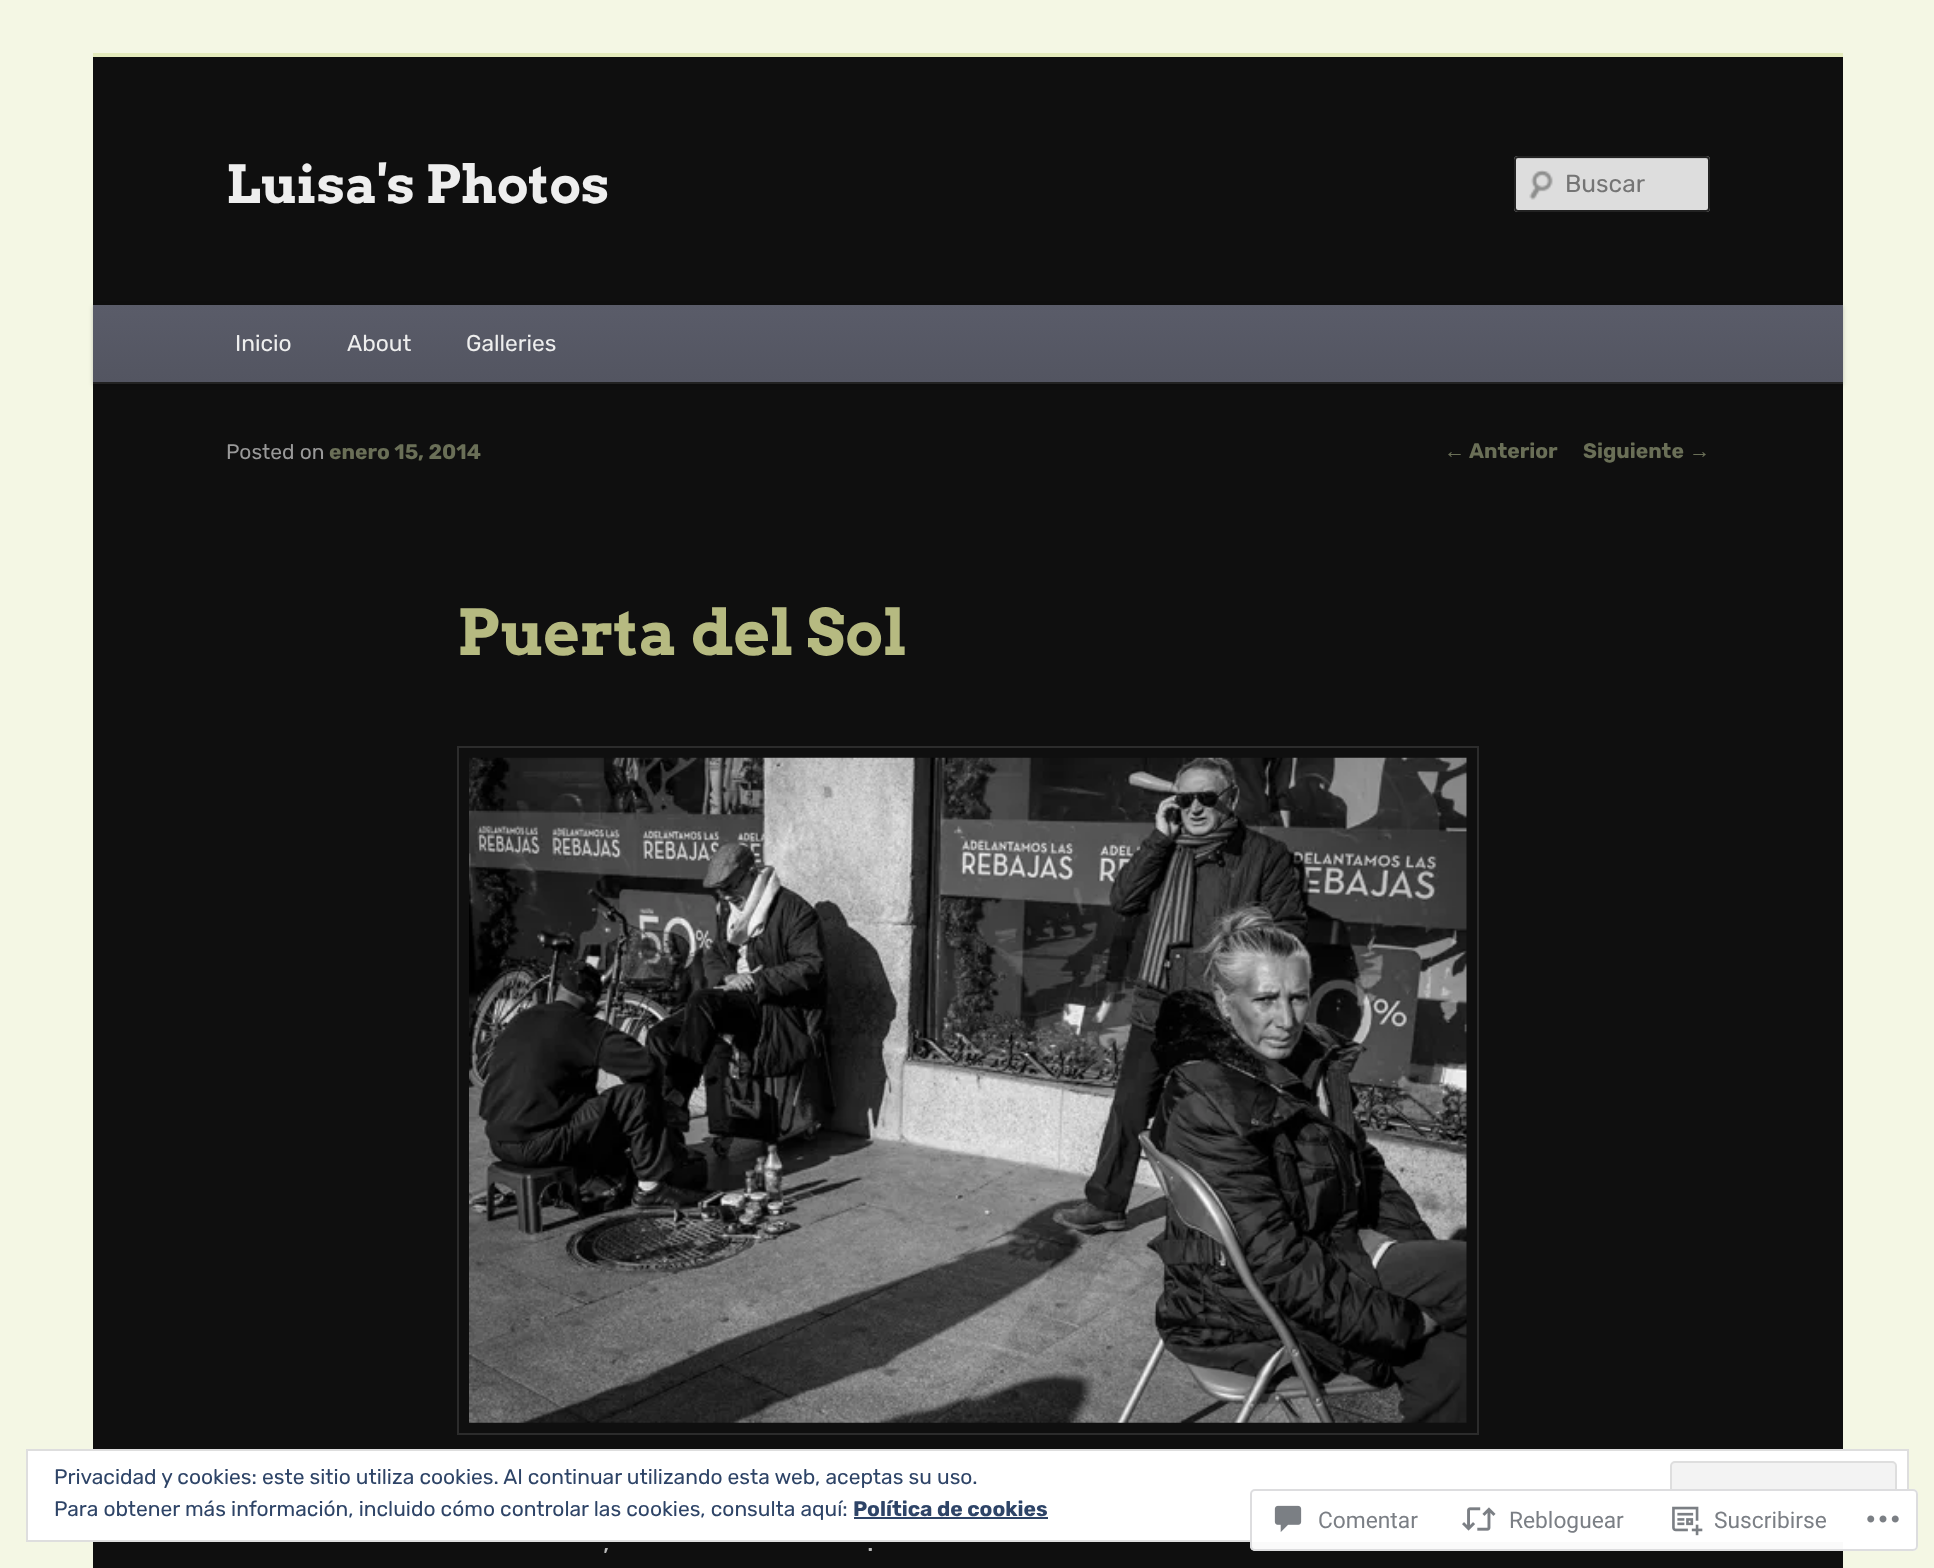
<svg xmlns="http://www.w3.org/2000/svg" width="1934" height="1568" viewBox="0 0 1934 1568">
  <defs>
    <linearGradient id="g1" gradientUnits="userSpaceOnUse" x1="968" y1="304" x2="968" y2="382"><stop offset="0" stop-color="#5a5c69"/><stop offset="1" stop-color="#535561"/></linearGradient>
  </defs>
  <rect width="100%" height="100%" fill="#f4f7e4"/>
  <path d="M93 57h1750v1511H93z" fill="#0f0f0f"/>
  <path d="M93 53h1750v4H93z" fill="#e4ebbc"/>
  <rect x="1514" y="156" width="196" height="56" rx="4" fill="#ddd"/>
  <image x="1529" y="170" width="24" height="30" href="img/1.png"/>
  <path d="M1517 159H1706L1708 160V161V160C1708 159 1707 158 1706 158H1518C1517 158 1516 159 1516 160V161C1516 160 1516 159 1517 159Z" fill="#c7c7c7"/>
  <rect x="1515" y="157" width="194" height="54" rx="3" fill="none" stroke="#222" stroke-width="2"/>
  <path d="M93 306h1750v79H93z" fill="#00000033" filter="blur(2px)"/>
  <path d="M93 305h1750v77H93z" fill="url(#g1)"/>
  <path d="M93 382h1750v2H93z" fill="#222"/>
  <path d="M458 747h1020v687H458z" fill="none" stroke="#2c2c2c" stroke-width="2"/>
  <image x="469" y="757" width="998" height="666" href="img/2.png"/>
  <path d="M27 1450h1881v91H27z" fill="#fff" stroke="#dedede" stroke-width="2"/>
  <rect x="1671" y="1462" width="225" height="67" rx="4" fill="#f3f3f3" stroke="#dedede" stroke-width="2"/>
  <path d="M854 1517h194v2H854z" fill="#2e4467"/>
  <rect x="1250" y="1489" width="668" height="62" rx="5" fill="#fffffffa"/>
  <rect x="1251" y="1490" width="666" height="60" rx="4" fill="none" stroke="#dcdcdefa" stroke-width="2"/>
  <image x="1274" y="1505" width="28" height="27" href="img/3.png"/>
  <image x="1462" y="1507" width="34" height="24" href="img/4.png"/>
  <image x="1672" y="1506" width="31" height="30" href="img/5.png"/>
  <image x="1867" y="1515" width="32" height="8" href="img/6.png"/>
  <text x="226" y="203" font-family="Arvo" font-size="52.5" font-weight="bold" fill="#eee">Luisa's Photos</text>
  <text x="1565" y="192" font-family="Rubik" font-size="24.5" fill="#757575">Buscar</text>
  <g font-family="Rubik" font-size="22.75" fill="#eee">
    <text x="235" y="351">Inicio</text>
    <text x="347" y="351">About</text>
    <text x="466" y="351">Galleries</text>
  </g>
  <text x="226" y="459" font-family="Rubik" font-size="21" fill="#999">Posted on</text>
  <text x="329" y="459" font-family="Rubik" font-size="21" font-weight="bold" fill="#6a6f57">enero 15, 2014</text>
  <text x="457" y="655" font-family="Arvo" font-size="63" font-weight="bold" fill="#b6ba81">Puerta del Sol</text>
  <g font-family="Rubik" font-size="26" fill="#bbb">
    <text x="603" y="1551">,</text>
    <text x="867" y="1551">.</text>
  </g>
  <text x="1444" y="458" font-family="Liberation Sans" font-size="21" fill="#6a6f57">←</text>
  <g font-family="Rubik" font-size="21" font-weight="bold" fill="#6a6f57">
    <text x="1469" y="458">Anterior</text>
    <text x="1583" y="458">Siguiente</text>
  </g>
  <text x="1689" y="458" font-family="Liberation Sans" font-size="21" fill="#6a6f57">→</text>
  <g font-family="Rubik" font-size="21" fill="#2e4467">
    <text x="54" y="1484">Privacidad y cookies: este sitio utiliza cookies. Al continuar utilizando esta web, aceptas su uso.</text>
    <text x="54" y="1516">Para obtener más información, incluido cómo controlar las cookies, consulta aquí:</text>
  </g>
  <text x="853" y="1516" font-family="Rubik" font-size="21" font-weight="bold" fill="#2e4467">Política de cookies</text>
  <g font-family="Roboto" font-size="22.75" fill="#7b7f85">
    <text x="1318" y="1528">Comentar</text>
    <text x="1509" y="1528">Rebloguear</text>
    <text x="1714" y="1528">Suscribirse</text>
  </g>
</svg>
